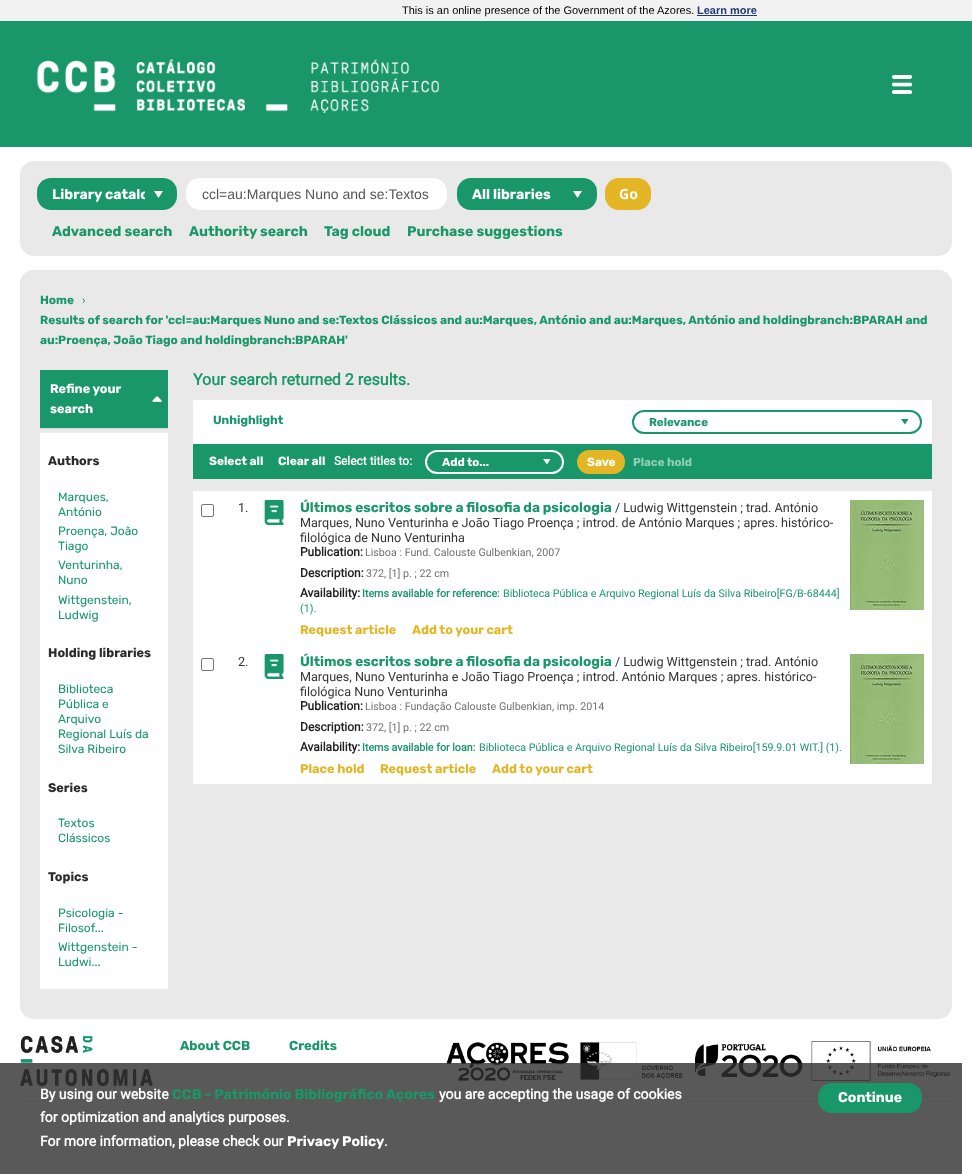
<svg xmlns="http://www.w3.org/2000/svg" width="972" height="1174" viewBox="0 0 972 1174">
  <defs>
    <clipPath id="clip1"><path d="M52 180h93v30H52z"/></clipPath>
  </defs>
  <rect width="100%" height="100%" fill="#fff"/>
  <path d="M0 0h972v21H0z" fill="#f2f2f2"/>
  <path d="M697 15h60v1H697z" fill="#1e396e"/>
  <path d="M0 21h972v126H0z" fill="#19976a"/>
  <image x="36" y="59" width="209" height="53" href="img/1.png"/>
  <image x="265" y="59" width="174" height="54" href="img/2.png"/>
  <image x="892" y="75" width="20" height="19" href="img/3.png"/>
  <rect x="20" y="161" width="932" height="95" rx="14" fill="#e9e9e9"/>
  <rect x="37" y="178" width="140" height="32" rx="14" fill="#19976a"/>
  <path d="M154 191H163L158.5 198Z" fill="#fafafa"/>
  <rect x="186" y="178" width="261" height="32" rx="14" fill="#fff"/>
  <rect x="457" y="178" width="140" height="32" rx="14" fill="#19976a"/>
  <path d="M573 191H582L577.5 198Z" fill="#fafafa"/>
  <rect x="605" y="178" width="46" height="32" rx="14" fill="#e4b626"/>
  <rect x="20" y="270" width="932" height="749" rx="14" fill="#e9e9e9"/>
  <rect x="20" y="270" width="932" height="100" rx="14" fill="#e9e9e9"/>
  <path d="M40 370h128v58H40z" fill="#19976a"/>
  <image x="152" y="396" width="10" height="6" href="img/4.png"/>
  <path d="M40 428h128v1H40z" fill="#d8d8d8"/>
  <path d="M40 433h128v556H40z" fill="#fff"/>
  <path d="M193 400h739v44H193z" fill="#fff"/>
  <path d="M901 419H908.5L905 424.5Z" fill="#19976a"/>
  <rect x="633" y="411" width="288" height="22" rx="11" fill="none" stroke="#19976a" stroke-width="2"/>
  <path d="M193 444h739v35H193z" fill="#19976a"/>
  <path d="M543 459H550.5L547 464.5Z" fill="#fafafa"/>
  <rect x="426" y="451" width="137" height="22" rx="11" fill="none" stroke="#fff" stroke-width="2"/>
  <rect x="577" y="450" width="48" height="24" rx="12" fill="#e4b626"/>
  <path d="M193 491h739v293H193z" fill="#fff"/>
  <rect x="201.5" y="504.5" width="12" height="12" rx="1.5" fill="none" stroke="#767676"/>
  <image x="264" y="500" width="20" height="25" href="img/5.png"/>
  <image x="850" y="500" width="74" height="110" href="img/6.png"/>
  <rect x="201.5" y="658.5" width="12" height="12" rx="1.5" fill="none" stroke="#767676"/>
  <image x="264" y="654" width="20" height="25" href="img/5.png"/>
  <image x="850" y="654" width="74" height="110" href="img/6.png"/>
  <image x="20" y="1036" width="133" height="50" href="img/7.png"/>
  <image x="446" y="1041" width="504" height="40" href="img/8.png"/>
  <path d="M20 1096h932v1H20z" fill="#e9e9e9"/>
  <path d="M0 1063h962v111H0z" fill="#2f2f2fcc"/>
  <rect x="818" y="1083" width="104" height="30" rx="14" fill="#19976a"/>
  <text x="402" y="14" font-family="Liberation Sans" font-size="11" fill="#000">This is an online presence of the Government of the Azores.</text>
  <text x="697" y="14" font-family="Liberation Sans" font-size="11" font-weight="bold" fill="#1e396e">Learn more</text>
  <g clip-path="url(#clip1)">
    <text x="52" y="199" font-family="Rubik" font-size="14" font-weight="bold" fill="#fff">Library catalo</text>
  </g>
  <text x="202" y="199" font-family="Liberation Sans" font-size="14" fill="#555">ccl=au:Marques Nuno and se:Textos</text>
  <text x="472" y="199" font-family="Rubik" font-size="14" font-weight="bold" fill="#fff">All libraries</text>
  <text x="619" y="199" font-family="Noto Sans" font-size="14" font-weight="bold" fill="#fff">Go</text>
  <g font-family="Rubik" font-size="14" font-weight="bold" fill="#19976a">
    <text x="52" y="236">Advanced search</text>
    <text x="189" y="236">Authority search</text>
    <text x="324" y="236">Tag cloud</text>
    <text x="407" y="236">Purchase suggestions</text>
  </g>
  <text x="40" y="304" font-family="Rubik" font-size="11.9" font-weight="bold" fill="#19976a">Home</text>
  <text x="82" y="304" font-family="Roboto" font-size="11.9" fill="#19976a">›</text>
  <g font-family="Rubik" font-size="11.9" font-weight="bold" fill="#19976a">
    <text x="40" y="324">Results of search for 'ccl=au:Marques Nuno and se:Textos Clássicos and au:Marques, António and au:Marques, António and holdingbranch:BPARAH and</text>
    <text x="40" y="344">au:Proença, João Tiago and holdingbranch:BPARAH'</text>
  </g>
  <g font-family="Rubik" font-size="12.6" font-weight="bold" fill="#fff">
    <text x="50" y="393">Refine your</text>
    <text x="50" y="413">search</text>
  </g>
  <text x="48" y="465" font-family="Rubik" font-size="12.6" font-weight="bold" fill="#2a2a2a">Authors</text>
  <g font-family="Rubik" font-size="12" fill="#19976a">
    <text x="58" y="501">Marques,</text>
    <text x="58" y="516">António</text>
    <text x="58" y="535">Proença, João</text>
    <text x="58" y="550">Tiago</text>
    <text x="58" y="569">Venturinha,</text>
    <text x="58" y="584">Nuno</text>
    <text x="58" y="604">Wittgenstein,</text>
    <text x="58" y="619">Ludwig</text>
  </g>
  <text x="48" y="657" font-family="Rubik" font-size="12.6" font-weight="bold" fill="#2a2a2a">Holding libraries</text>
  <g font-family="Rubik" font-size="12" fill="#19976a">
    <text x="58" y="693">Biblioteca</text>
    <text x="58" y="708">Pública e</text>
    <text x="58" y="723">Arquivo</text>
    <text x="58" y="738">Regional Luís da</text>
    <text x="58" y="753">Silva Ribeiro</text>
  </g>
  <text x="48" y="792" font-family="Rubik" font-size="12.6" font-weight="bold" fill="#2a2a2a">Series</text>
  <g font-family="Rubik" font-size="12" fill="#19976a">
    <text x="58" y="827">Textos</text>
    <text x="58" y="842">Clássicos</text>
  </g>
  <text x="48" y="881" font-family="Rubik" font-size="12.6" font-weight="bold" fill="#2a2a2a">Topics</text>
  <g font-family="Rubik" font-size="12" fill="#19976a">
    <text x="58" y="917">Psicologia -</text>
    <text x="58" y="932">Filosof...</text>
    <text x="58" y="951">Wittgenstein -</text>
    <text x="58" y="966">Ludwi...</text>
  </g>
  <text x="193" y="385" font-family="Roboto" font-size="16" font-weight="bold" fill="#19976a">Your search returned 2 results.</text>
  <text x="213" y="424" font-family="Rubik" font-size="11.9" font-weight="bold" fill="#19976a">Unhighlight</text>
  <text x="649" y="426" font-family="Rubik" font-size="11.5" font-weight="bold" fill="#19976a">Relevance</text>
  <g font-family="Rubik" font-size="11.9" font-weight="bold" fill="#fff">
    <text x="209" y="465">Select all</text>
    <text x="278" y="465">Clear all</text>
  </g>
  <text x="334" y="465" font-family="Roboto" font-size="11.9" font-weight="bold" fill="#fff">Select titles to:</text>
  <text x="442" y="466" font-family="Rubik" font-size="11.5" font-weight="bold" fill="#fff">Add to...</text>
  <text x="587" y="466" font-family="Rubik" font-size="11.9" font-weight="bold" fill="#fff">Save</text>
  <text x="633" y="466" font-family="Rubik" font-size="11.5" font-weight="bold" fill="#91cdb8">Place hold</text>
  <text x="238" y="512" font-family="Roboto" font-size="12.6" fill="#333">1.</text>
  <text x="300" y="512" font-family="Rubik" font-size="13.6" font-weight="bold" fill="#19976a">Últimos escritos sobre a filosofia da psicologia</text>
  <g font-family="Roboto" font-size="12.6" fill="#333">
    <text x="615" y="512">/ Ludwig Wittgenstein ; trad. António</text>
    <text x="300" y="527">Marques, Nuno Venturinha e João Tiago Proença ; introd. de António Marques ; apres. histórico-</text>
    <text x="300" y="542">filológica de Nuno Venturinha</text>
  </g>
  <text x="300" y="556" font-family="Roboto" font-size="12" font-weight="bold" fill="#202020">Publication:</text>
  <text x="365" y="556" font-family="Roboto" font-size="10.7" fill="#707070">Lisboa : Fund. Calouste Gulbenkian, 2007</text>
  <text x="300" y="577" font-family="Roboto" font-size="12" font-weight="bold" fill="#202020">Description:</text>
  <text x="366" y="577" font-family="Roboto" font-size="10.7" fill="#707070">372, [1] p. ; 22 cm</text>
  <text x="300" y="597" font-family="Roboto" font-size="12" font-weight="bold" fill="#202020">Availability:</text>
  <text x="362" y="597" font-family="Roboto" font-size="10.7" font-weight="bold" fill="#19976a">Items available for reference:</text>
  <g font-family="Roboto" font-size="10.7" fill="#19976a">
    <text x="503" y="597">Biblioteca Pública e Arquivo Regional Luís da Silva Ribeiro[FG/B-68444]</text>
    <text x="300" y="612">(1).</text>
  </g>
  <g font-family="Rubik" font-size="12.6" font-weight="bold" fill="#e4b626">
    <text x="300" y="634">Request article</text>
    <text x="412" y="634">Add to your cart</text>
  </g>
  <text x="238" y="666" font-family="Roboto" font-size="12.6" fill="#333">2.</text>
  <text x="300" y="666" font-family="Rubik" font-size="13.6" font-weight="bold" fill="#19976a">Últimos escritos sobre a filosofia da psicologia</text>
  <g font-family="Roboto" font-size="12.6" fill="#333">
    <text x="615" y="666">/ Ludwig Wittgenstein ; trad. António</text>
    <text x="300" y="681">Marques, Nuno Venturinha e João Tiago Proença ; introd. António Marques ; apres. histórico-</text>
    <text x="300" y="696">filológica Nuno Venturinha</text>
  </g>
  <text x="300" y="710" font-family="Roboto" font-size="12" font-weight="bold" fill="#202020">Publication:</text>
  <text x="365" y="710" font-family="Roboto" font-size="10.7" fill="#707070">Lisboa : Fundação Calouste Gulbenkian, imp. 2014</text>
  <text x="300" y="731" font-family="Roboto" font-size="12" font-weight="bold" fill="#202020">Description:</text>
  <text x="366" y="731" font-family="Roboto" font-size="10.7" fill="#707070">372, [1] p. ; 22 cm</text>
  <text x="300" y="751" font-family="Roboto" font-size="12" font-weight="bold" fill="#202020">Availability:</text>
  <text x="362" y="751" font-family="Roboto" font-size="10.7" font-weight="bold" fill="#19976a">Items available for loan:</text>
  <text x="479" y="751" font-family="Roboto" font-size="10.7" fill="#19976a">Biblioteca Pública e Arquivo Regional Luís da Silva Ribeiro[159.9.01 WIT.] (1).</text>
  <g font-family="Rubik" font-size="12.6" font-weight="bold" fill="#e4b626">
    <text x="300" y="773">Place hold</text>
    <text x="380" y="773">Request article</text>
    <text x="492" y="773">Add to your cart</text>
  </g>
  <g font-family="Rubik" font-size="13" font-weight="bold" fill="#19976a">
    <text x="180" y="1050">About CCB</text>
    <text x="289" y="1050">Credits</text>
  </g>
  <text x="40" y="1099" font-family="Roboto" font-size="14" font-weight="bold" fill="#fff">By using our website</text>
  <text x="172" y="1099" font-family="Rubik" font-size="14" font-weight="bold" fill="#19976a">CCB - Património Bibliográfico Açores</text>
  <g font-family="Roboto" font-size="14" font-weight="bold" fill="#fff">
    <text x="439" y="1099">you are accepting the usage of cookies</text>
    <text x="40" y="1122">for optimization and analytics purposes.</text>
    <text x="40" y="1146">For more information, please check our</text>
  </g>
  <text x="287" y="1146" font-family="Rubik" font-size="14" font-weight="bold" fill="#fff">Privacy Policy</text>
  <text x="384" y="1146" font-family="Roboto" font-size="14" font-weight="bold" fill="#fff">.</text>
  <text x="838" y="1102" font-family="Rubik" font-size="14" font-weight="bold" fill="#fff">Continue</text>
</svg>
